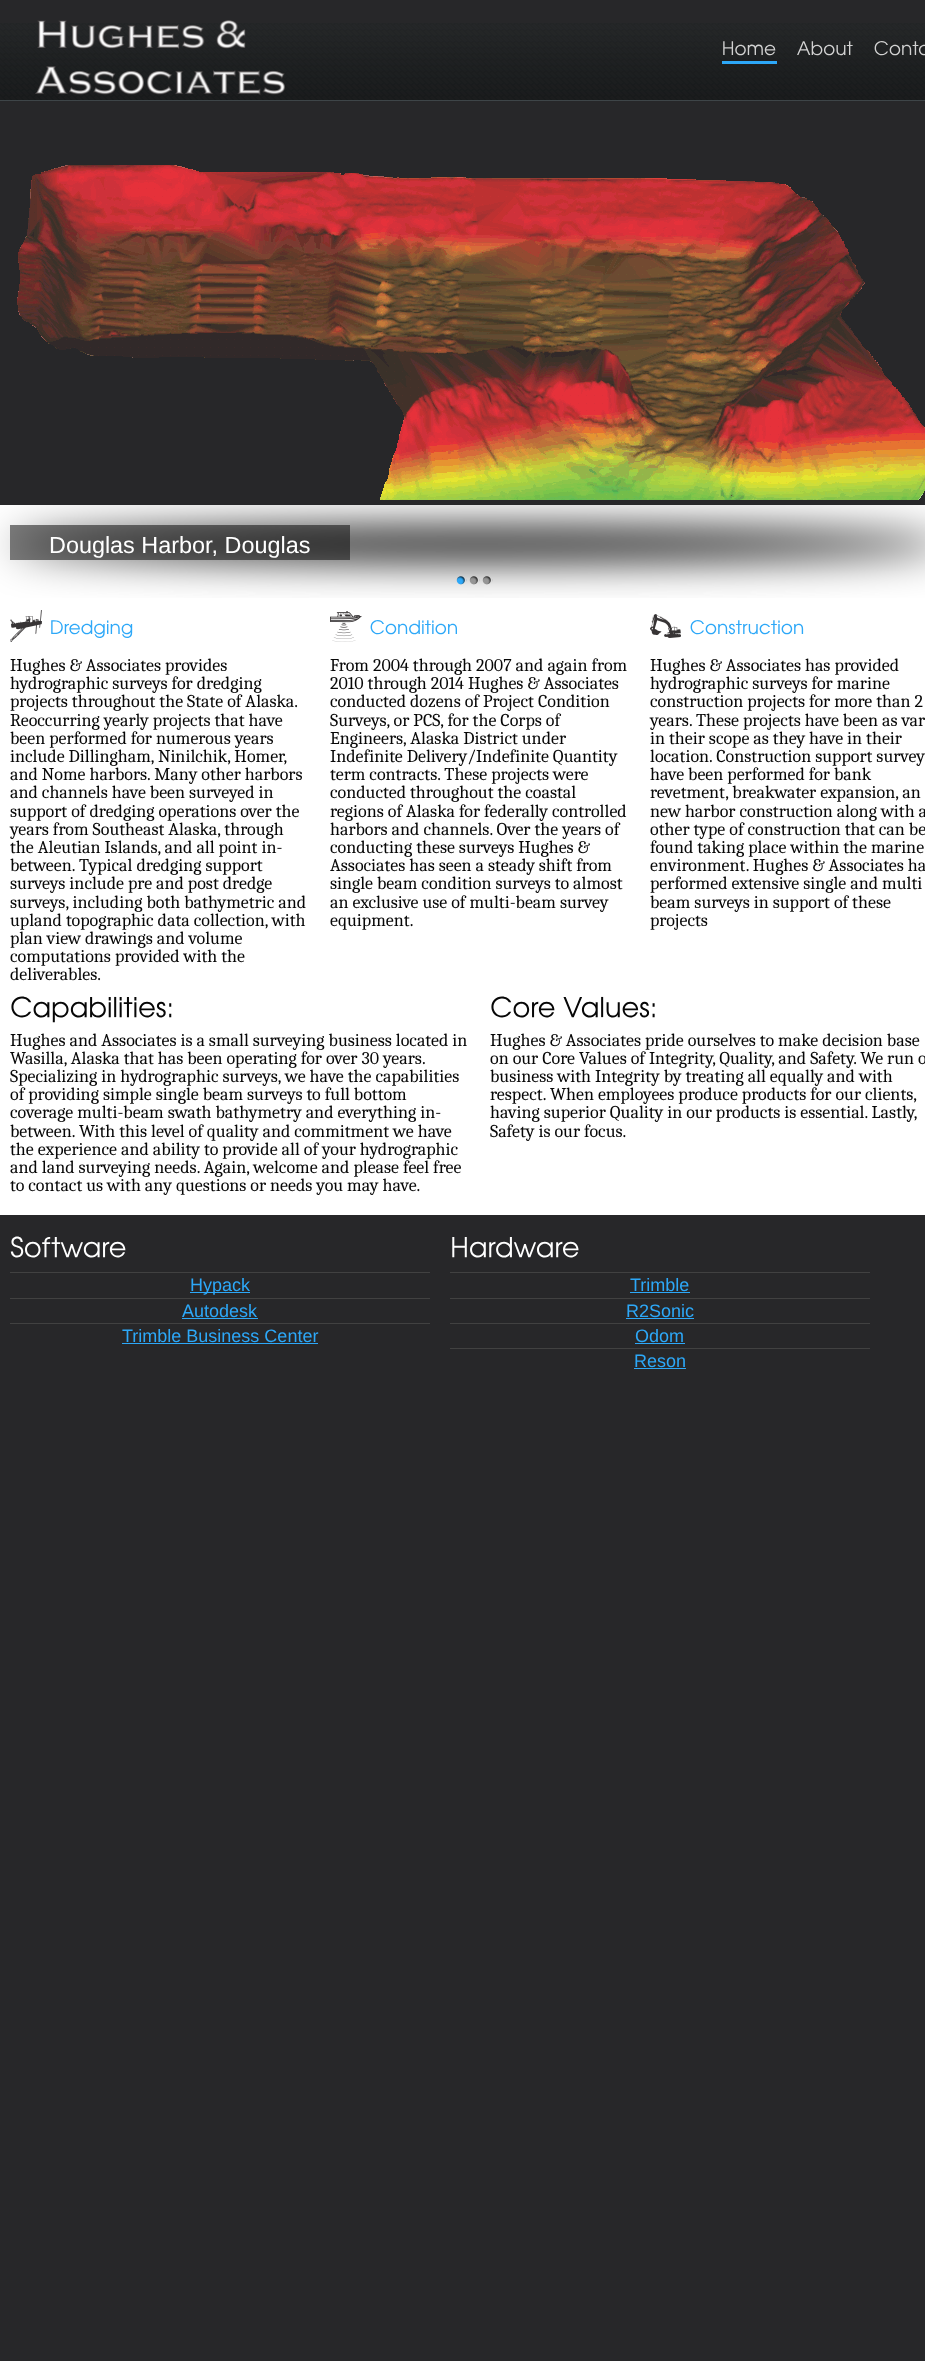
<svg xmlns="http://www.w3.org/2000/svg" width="925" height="2361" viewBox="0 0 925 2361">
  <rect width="100%" height="100%" fill="#272729"/>
  <image x="0" y="23" width="925" height="78" href="img/1.png"/>
  <image x="35" y="20" width="250" height="75" href="img/2.png"/>
  <path d="M722 61h55v3H722z" fill="#2da8f8"/>
  <image x="723" y="41" width="53" height="15" href="img/3.png"/>
  <image x="797" y="41" width="56" height="15" href="img/4.png"/>
  <image x="874" y="41" width="51" height="15" href="img/5.png"/>
  <image x="17" y="165" width="908" height="335" href="img/6.png"/>
  <path d="M0 505h925v710H0z" fill="#fff"/>
  <image x="0" y="505" width="925" height="93" href="img/10.png"/>
  <path d="M10 525h340v35H10z" fill="#00000080"/>
  <image x="456" y="576" width="11" height="9" href="img/7.png"/>
  <image x="469" y="576" width="11" height="9" href="img/8.png"/>
  <image x="482" y="576" width="11" height="9" href="img/9.png"/>
  <image x="10" y="610" width="32" height="32" href="img/11.png"/>
  <image x="51" y="620" width="82" height="18" href="img/12.png"/>
  <image x="330" y="611" width="32" height="31" href="img/13.png"/>
  <image x="370" y="620" width="87" height="15" href="img/14.png"/>
  <image x="650" y="614" width="31" height="24" href="img/15.png"/>
  <image x="690" y="620" width="114" height="15" href="img/16.png"/>
  <image x="11" y="996" width="161" height="27" href="img/17.png"/>
  <image x="491" y="996" width="64" height="22" href="img/18.png"/>
  <image x="563" y="996" width="92" height="22" href="img/19.png"/>
  <image x="10" y="1236" width="116" height="22" href="img/20.png"/>
  <path d="M10 1272h420v1H10z" fill="#414141"/>
  <path d="M190 1292h60v1H190z" fill="#2da8f8"/>
  <path d="M10 1298h420v1H10z" fill="#414141"/>
  <path d="M182 1318h76v1H182z" fill="#2da8f8"/>
  <path d="M10 1323h420v1H10z" fill="#414141"/>
  <path d="M122 1343h196v1H122z" fill="#2da8f8"/>
  <image x="452" y="1237" width="127" height="21" href="img/21.png"/>
  <path d="M450 1272h420v1H450z" fill="#414141"/>
  <path d="M630 1292h60v1H630z" fill="#2da8f8"/>
  <path d="M450 1298h420v1H450z" fill="#414141"/>
  <path d="M626 1318h68v1H626z" fill="#2da8f8"/>
  <path d="M450 1323h420v1H450z" fill="#414141"/>
  <path d="M635 1343h50v1H635z" fill="#2da8f8"/>
  <path d="M450 1348h420v1H450z" fill="#414141"/>
  <path d="M634 1368h52v1H634z" fill="#2da8f8"/>
  <text x="49" y="553" font-family="Liberation Sans" font-size="23.4" fill="#fff">Douglas Harbor, Douglas</text>
  <g font-family="Caladea" font-size="18" fill="#070707">
    <text x="10" y="671">Hughes &amp; Associates provides</text>
    <text x="10" y="689">hydrographic surveys for dredging</text>
    <text x="10" y="707">projects throughout the State of Alaska.</text>
    <text x="10" y="726">Reoccurring yearly projects that have</text>
    <text x="10" y="744">been performed for numerous years</text>
    <text x="10" y="762">include Dillingham, Ninilchik, Homer,</text>
    <text x="10" y="780">and Nome harbors. Many other harbors</text>
    <text x="10" y="798">and channels have been surveyed in</text>
    <text x="10" y="817">support of dredging operations over the</text>
    <text x="10" y="835">years from Southeast Alaska, through</text>
    <text x="10" y="853">the Aleutian Islands, and all point in-</text>
    <text x="10" y="871">between. Typical dredging support</text>
    <text x="10" y="889">surveys include pre and post dredge</text>
    <text x="10" y="908">surveys, including both bathymetric and</text>
    <text x="10" y="926">upland topographic data collection, with</text>
    <text x="10" y="944">plan view drawings and volume</text>
    <text x="10" y="962">computations provided with the</text>
    <text x="10" y="980">deliverables.</text>
    <text x="330" y="671">From 2004 through 2007 and again from</text>
    <text x="330" y="689">2010 through 2014 Hughes &amp; Associates</text>
    <text x="330" y="707">conducted dozens of Project Condition</text>
    <text x="330" y="726">Surveys, or PCS, for the Corps of</text>
    <text x="330" y="744">Engineers, Alaska District under</text>
    <text x="330" y="762">Indefinite Delivery/Indefinite Quantity</text>
    <text x="330" y="780">term contracts. These projects were</text>
    <text x="330" y="798">conducted throughout the coastal</text>
    <text x="330" y="817">regions of Alaska for federally controlled</text>
    <text x="330" y="835">harbors and channels. Over the years of</text>
    <text x="330" y="853">conducting these surveys Hughes &amp;</text>
    <text x="330" y="871">Associates has seen a steady shift from</text>
    <text x="330" y="889">single beam condition surveys to almost</text>
    <text x="330" y="908">an exclusive use of multi-beam survey</text>
    <text x="330" y="926">equipment.</text>
    <text x="650" y="671">Hughes &amp; Associates has provided</text>
    <text x="650" y="689">hydrographic surveys for marine</text>
    <text x="650" y="707">construction projects for more than 2</text>
    <text x="650" y="726">years. These projects have been as var</text>
    <text x="650" y="744">in their scope as they have in their</text>
    <text x="650" y="762">location. Construction support survey</text>
    <text x="650" y="780">have been performed for bank</text>
    <text x="650" y="798">revetment, breakwater expansion, an</text>
    <text x="650" y="817">new harbor construction along with a</text>
    <text x="650" y="835">other type of construction that can be</text>
    <text x="650" y="853">found taking place within the marine</text>
    <text x="650" y="871">environment. Hughes &amp; Associates ha</text>
    <text x="650" y="889">performed extensive single and multi</text>
    <text x="650" y="908">beam surveys in support of these</text>
    <text x="650" y="926">projects</text>
    <text x="10" y="1046">Hughes and Associates is a small surveying business located in</text>
    <text x="10" y="1064">Wasilla, Alaska that has been operating for over 30 years.</text>
    <text x="10" y="1082">Specializing in hydrographic surveys, we have the capabilities</text>
    <text x="10" y="1100">of providing simple single beam surveys to full bottom</text>
    <text x="10" y="1118">coverage multi-beam swath bathymetry and everything in-</text>
    <text x="10" y="1137">between. With this level of quality and commitment we have</text>
    <text x="10" y="1155">the experience and ability to provide all of your hydrographic</text>
    <text x="10" y="1173">and land surveying needs. Again, welcome and please feel free</text>
    <text x="10" y="1191">to contact us with any questions or needs you may have.</text>
    <text x="490" y="1046">Hughes &amp; Associates pride ourselves to make decision base</text>
    <text x="490" y="1064">on our Core Values of Integrity, Quality, and Safety. We run o</text>
    <text x="490" y="1082">business with Integrity by treating all equally and with</text>
    <text x="490" y="1100">respect. When employees produce products for our clients,</text>
    <text x="490" y="1118">having superior Quality in our products is essential. Lastly,</text>
    <text x="490" y="1137">Safety is our focus.</text>
  </g>
  <g font-family="Liberation Sans" font-size="18" fill="#2da8f8">
    <text x="190" y="1291">Hypack</text>
    <text x="182" y="1317">Autodesk</text>
    <text x="122" y="1342">Trimble Business Center</text>
    <text x="630" y="1291">Trimble</text>
    <text x="626" y="1317">R2Sonic</text>
    <text x="635" y="1342">Odom</text>
    <text x="634" y="1367">Reson</text>
  </g>
</svg>
